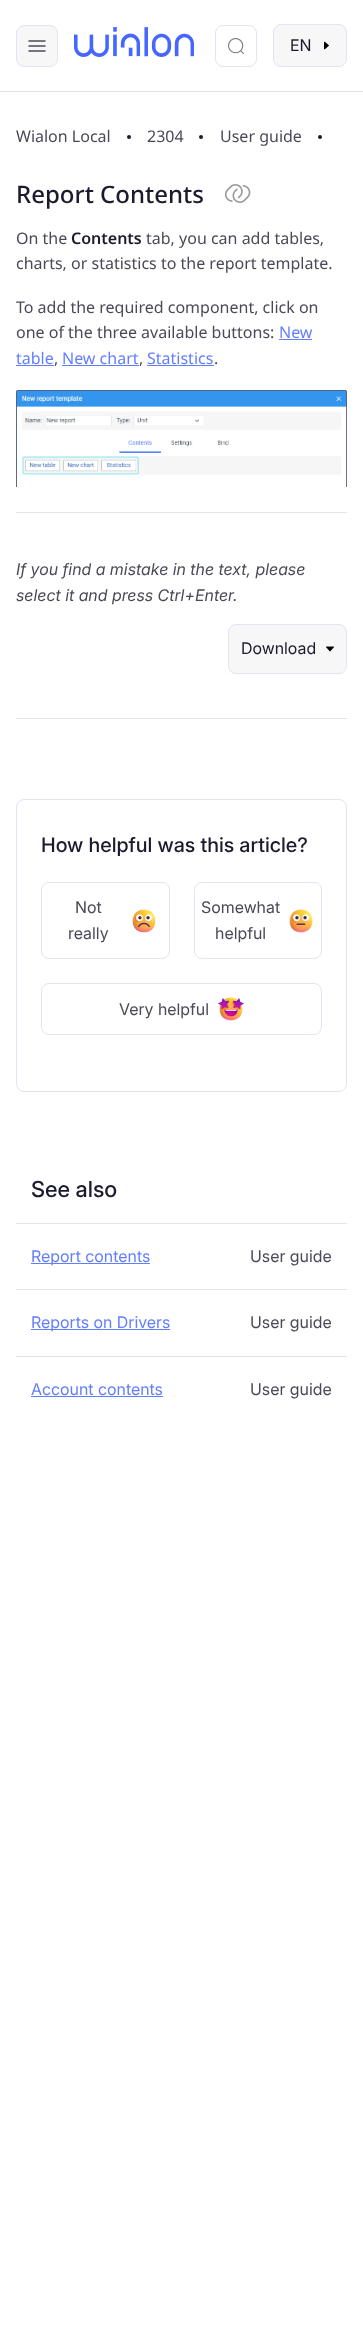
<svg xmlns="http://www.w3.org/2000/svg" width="363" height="2327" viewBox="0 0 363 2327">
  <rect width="100%" height="100%" fill="#fff"/>
  <path d="M0 91h363v1H0z" fill="#e2e3f4"/>
  <rect x="16.5" y="25.5" width="41" height="41" rx="7.5" fill="#f7f7f8" stroke="#e2e3f4"/>
  <image x="28" y="40" width="18" height="12" href="img/1.png"/>
  <image x="74" y="27" width="120" height="30" href="img/2.png"/>
  <rect x="215.5" y="25.5" width="41" height="41" rx="7.5" fill="none" stroke="#e2e3f4"/>
  <image x="228" y="38" width="16" height="16" href="img/3.png"/>
  <rect x="273.5" y="24.5" width="73" height="42" rx="7.5" fill="#f7f7f8" stroke="#e2e3f4"/>
  <image x="324" y="41" width="5" height="9" href="img/4.png"/>
  <circle cx="129" cy="137" r="2" fill="#1b1b2d"/>
  <circle cx="201" cy="137" r="2" fill="#1b1b2d"/>
  <circle cx="320" cy="137" r="2" fill="#1b1b2d"/>
  <image x="225" y="184" width="26" height="19" href="img/5.png"/>
  <path d="M279 339h33v1H279z" fill="#627eff"/>
  <path d="M16 365h38v1H16z" fill="#627eff"/>
  <path d="M62 365h77v1H62z" fill="#627eff"/>
  <path d="M147 365h67v1H147z" fill="#627eff"/>
  <image x="16" y="390" width="331" height="97" href="img/6.png"/>
  <path d="M16 512h331v1H16z" fill="#e2e3f4"/>
  <path d="M16 718h331v1H16z" fill="#e2e3f4"/>
  <rect x="228.5" y="624.5" width="118" height="49" rx="7.5" fill="#f7f7f8" stroke="#e2e3f4"/>
  <image x="326" y="646" width="8" height="6" href="img/7.png"/>
  <rect x="16.5" y="799.5" width="330" height="292" rx="7.5" fill="none" stroke="#e2e3f4"/>
  <rect x="41.5" y="882.5" width="128" height="76" rx="7.5" fill="none" stroke="#e2e3f4"/>
  <image x="132" y="909" width="24" height="24" href="img/8.png"/>
  <rect x="194.5" y="882.5" width="127" height="76" rx="7.5" fill="none" stroke="#e2e3f4"/>
  <image x="289" y="909" width="24" height="24" href="img/9.png"/>
  <rect x="41.5" y="983.5" width="280" height="51" rx="7.5" fill="none" stroke="#e2e3f4"/>
  <image x="218" y="997" width="26" height="24" href="img/10.png"/>
  <path d="M16 1223h331v1H16z" fill="#e2e3f4"/>
  <path d="M31 1263h119v1H31z" fill="#627eff"/>
  <path d="M16 1289h331v1H16z" fill="#e2e3f4"/>
  <path d="M31 1329h139v1H31z" fill="#627eff"/>
  <path d="M16 1356h331v1H16z" fill="#e2e3f4"/>
  <path d="M31 1396h132v1H31z" fill="#627eff"/>
  <text x="290" y="51" font-family="Inter" font-size="16" fill="#1b1b2d">EN</text>
  <g font-family="Noto Sans" font-size="16" fill="#494957">
    <text x="16" y="142">Wialon Local</text>
    <text x="147" y="142">2304</text>
    <text x="220" y="142">User guide</text>
  </g>
  <text x="16" y="203" font-family="Noto Sans" font-size="24" font-weight="500" fill="#1b1b2d">Report Contents</text>
  <text x="16" y="244" font-family="Noto Sans" font-size="16" fill="#494957">On the</text>
  <text x="71" y="244" font-family="Noto Sans" font-size="16" font-weight="600" fill="#1b1b2d">Contents</text>
  <g font-family="Noto Sans" font-size="16" fill="#494957">
    <text x="146" y="244">tab, you can add tables,</text>
    <text x="16" y="269">charts, or statistics to the report template.</text>
    <text x="16" y="313">To add the required component, click on</text>
    <text x="16" y="338">one of the three available buttons:</text>
  </g>
  <g font-family="Noto Sans" font-size="16" fill="#627eff">
    <text x="279" y="338">New</text>
    <text x="16" y="364">table</text>
  </g>
  <text x="54" y="364" font-family="Noto Sans" font-size="16" fill="#494957">,</text>
  <text x="62" y="364" font-family="Noto Sans" font-size="16" fill="#627eff">New chart</text>
  <text x="139" y="364" font-family="Noto Sans" font-size="16" fill="#494957">,</text>
  <text x="147" y="364" font-family="Noto Sans" font-size="16" fill="#627eff">Statistics</text>
  <text x="214" y="364" font-family="Noto Sans" font-size="16" fill="#494957">.</text>
  <g font-family="Inter" font-size="16" font-style="italic" fill="#494957">
    <text x="16" y="575">If you find a mistake in the text, please</text>
    <text x="16" y="601">select it and press Ctrl+Enter.</text>
  </g>
  <text x="241" y="654" font-family="Inter" font-size="16" fill="#1b1b2d">Download</text>
  <text x="41" y="852" font-family="Inter" font-size="20" font-weight="500" fill="#1b1b2d">How helpful was this article?</text>
  <g font-family="Inter" font-size="16" fill="#494957">
    <text x="75" y="913">Not</text>
    <text x="68" y="939">really</text>
    <text x="201" y="913">Somewhat</text>
    <text x="215" y="939">helpful</text>
    <text x="119" y="1015">Very helpful</text>
  </g>
  <text x="31" y="1197" font-family="'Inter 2'" font-size="22" font-weight="500" fill="#1b1b2d">See also</text>
  <text x="31" y="1262" font-family="Inter" font-size="16" fill="#627eff">Report contents</text>
  <text x="250" y="1262" font-family="Inter" font-size="16" fill="#494957">User guide</text>
  <text x="31" y="1328" font-family="Inter" font-size="16" fill="#627eff">Reports on Drivers</text>
  <text x="250" y="1328" font-family="Inter" font-size="16" fill="#494957">User guide</text>
  <text x="31" y="1395" font-family="Inter" font-size="16" fill="#627eff">Account contents</text>
  <text x="250" y="1395" font-family="Inter" font-size="16" fill="#494957">User guide</text>
</svg>
